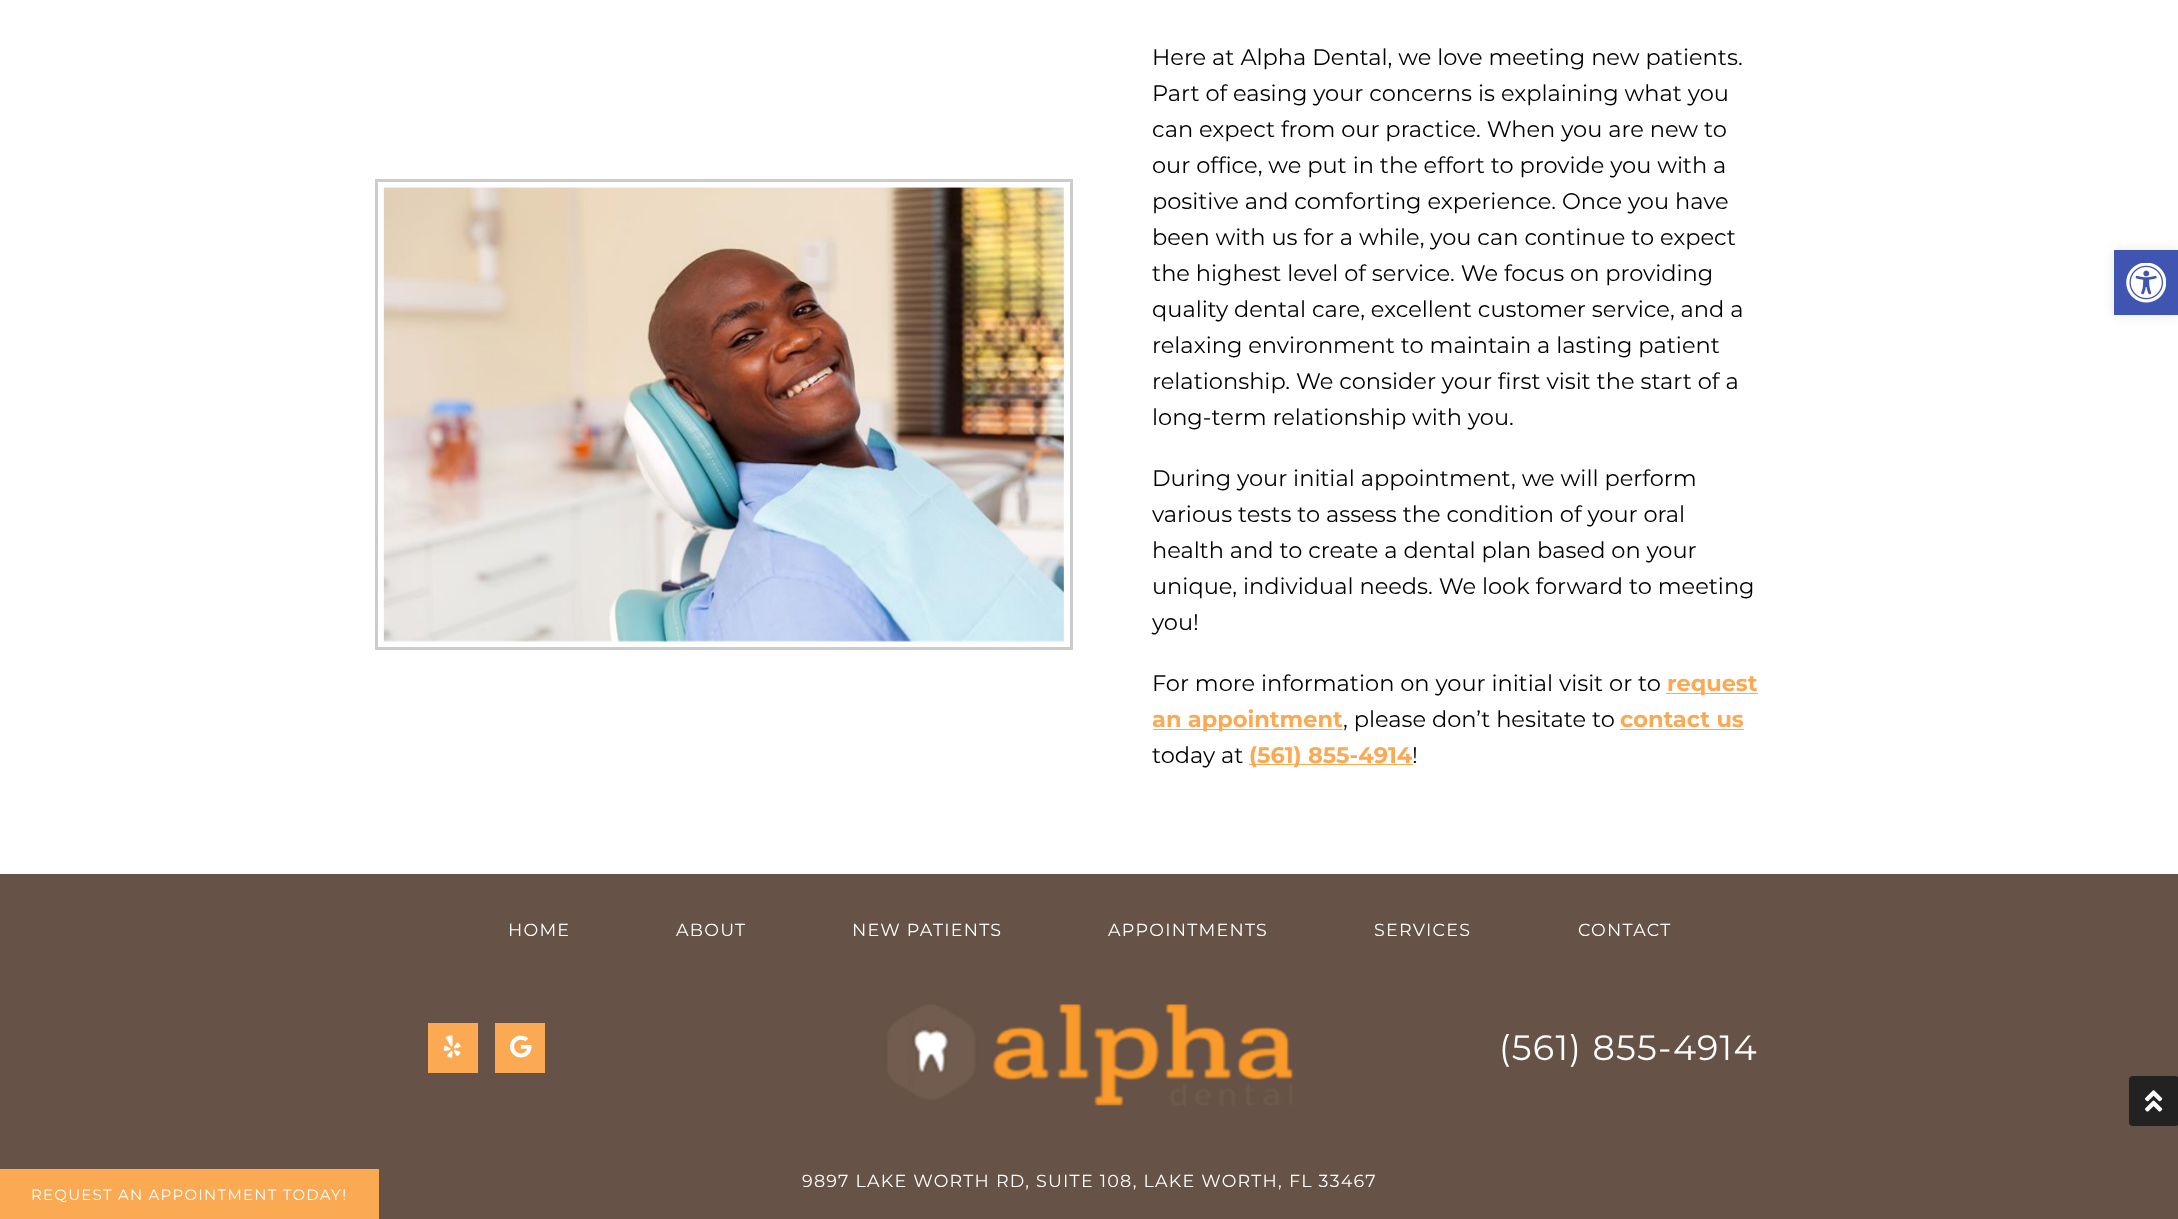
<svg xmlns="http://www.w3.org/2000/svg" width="2178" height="1219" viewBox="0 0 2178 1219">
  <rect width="100%" height="100%" fill="#fff"/>
  <image x="383" y="187" width="681" height="455" href="img/1.png"/>
  <path d="M376.5 180.5h695v468H376.5z" fill="none" stroke="#ccc" stroke-width="3"/>
  <path d="M1666 693h92v1H1666z" fill="#fba952"/>
  <path d="M1153 729h190v1H1153z" fill="#fba952"/>
  <path d="M1620 729h124v1H1620z" fill="#fba952"/>
  <path d="M1249 764h164v1H1249z" fill="#fba952"/>
  <path d="M0 874h2178v345H0z" fill="#665246"/>
  <path d="M428 1023h50v50H428z" fill="#fba952"/>
  <image x="443" y="1035" width="18" height="23" href="img/2.png"/>
  <path d="M495 1023h50v50H495z" fill="#fba952"/>
  <image x="510" y="1035" width="22" height="23" href="img/3.png"/>
  <image x="886" y="1004" width="408" height="102" href="img/4.png"/>
  <path d="M0 1169h379v50H0z" fill="#fba952"/>
  <path d="M2114 250h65v65H2114z" fill="#0000001a" filter="blur(6px)"/>
  <path d="M2114 250h64v65H2114z" fill="#4054b2"/>
  <image x="2126" y="263" width="40" height="40" href="img/5.png"/>
  <rect x="2129" y="1076" width="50" height="50" rx="4" fill="#222"/>
  <image x="2145" y="1090" width="18" height="22" href="img/6.png"/>
  <g font-family="Montserrat" font-size="22.5" fill="#000">
    <text x="1152" y="65">Here at Alpha Dental, we love meeting new patients.</text>
    <text x="1152" y="101">Part of easing your concerns is explaining what you</text>
    <text x="1152" y="137">can expect from our practice. When you are new to</text>
    <text x="1152" y="173">our office, we put in the effort to provide you with a</text>
    <text x="1152" y="209">positive and comforting experience. Once you have</text>
    <text x="1152" y="245">been with us for a while, you can continue to expect</text>
    <text x="1152" y="281">the highest level of service. We focus on providing</text>
    <text x="1152" y="317">quality dental care, excellent customer service, and a</text>
    <text x="1152" y="353">relaxing environment to maintain a lasting patient</text>
    <text x="1152" y="389">relationship. We consider your first visit the start of a</text>
    <text x="1152" y="425">long-term relationship with you.</text>
    <text x="1152" y="486">During your initial appointment, we will perform</text>
    <text x="1152" y="522">various tests to assess the condition of your oral</text>
    <text x="1152" y="558">health and to create a dental plan based on your</text>
    <text x="1152" y="594">unique, individual needs. We look forward to meeting</text>
    <text x="1152" y="630">you!</text>
    <text x="1152" y="691">For more information on your initial visit or to</text>
  </g>
  <g font-family="Montserrat" font-size="22.5" font-weight="bold" fill="#fba952">
    <text x="1667" y="691">request</text>
    <text x="1152" y="727">an appointment</text>
  </g>
  <text x="1343" y="727" font-family="Montserrat" font-size="22.5" fill="#000">, please don’t hesitate to</text>
  <text x="1620" y="727" font-family="Montserrat" font-size="22.5" font-weight="bold" fill="#fba952">contact us</text>
  <text x="1152" y="763" font-family="Montserrat" font-size="22.5" fill="#000">today at</text>
  <text x="1249" y="763" font-family="Montserrat" font-size="22.5" font-weight="bold" fill="#fba952">(561) 855-4914</text>
  <text x="1412" y="763" font-family="Montserrat" font-size="22.5" fill="#000">!</text>
  <g font-family="Montserrat" font-size="17.5" letter-spacing="1.25" fill="#fff">
    <text x="508" y="936">HOME</text>
    <text x="676" y="936">ABOUT</text>
    <text x="852" y="936">NEW PATIENTS</text>
    <text x="1108" y="936">APPOINTMENTS</text>
    <text x="1374" y="936">SERVICES</text>
    <text x="1578" y="936">CONTACT</text>
  </g>
  <text x="1499" y="1060" font-family="Montserrat" font-size="35" letter-spacing="1.25" fill="#fff">(561) 855-4914</text>
  <text x="802" y="1187" font-family="Montserrat" font-size="17.5" letter-spacing="1.25" fill="#fff">9897 LAKE WORTH RD, SUITE 108, LAKE WORTH, FL 33467</text>
  <text x="31" y="1200" font-family="Montserrat" font-size="15" letter-spacing="1.25" fill="#fff">REQUEST AN APPOINTMENT TODAY!</text>
</svg>
